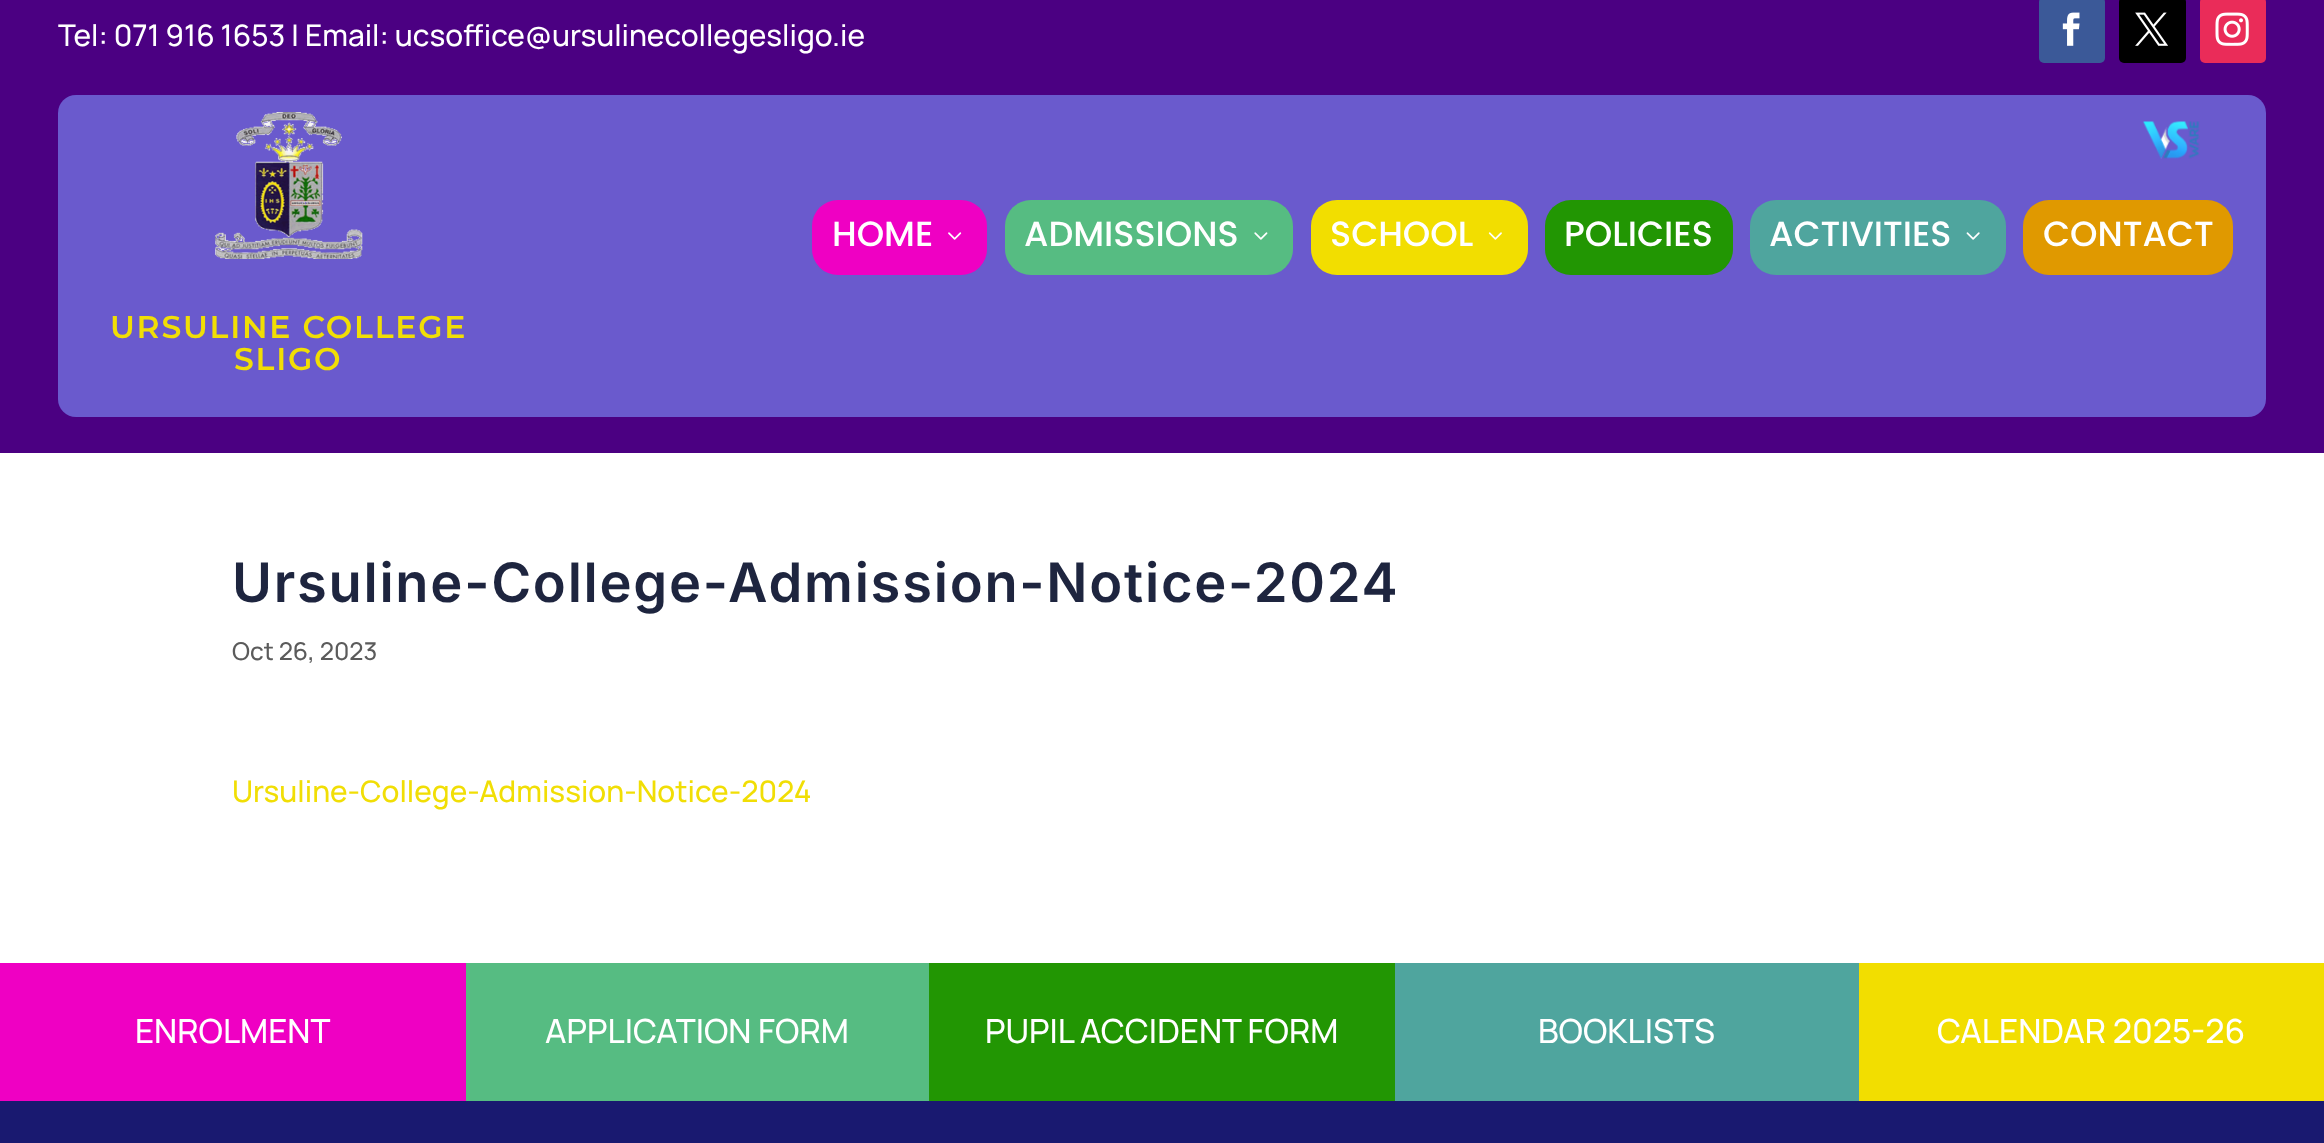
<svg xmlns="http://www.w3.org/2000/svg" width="2324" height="1143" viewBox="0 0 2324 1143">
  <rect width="100%" height="100%" fill="#fff"/>
  <path d="M0 0h2324v453H0z" fill="#4b0082"/>
  <rect x="2039" y="-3" width="66" height="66" rx="5" fill="#3b5998"/>
  <image x="2062" y="12" width="18" height="34" href="img/1.png"/>
  <rect x="2119" y="-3" width="67" height="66" rx="5" fill="#000"/>
  <image x="2135" y="12" width="33" height="34" href="img/2.png"/>
  <rect x="2200" y="-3" width="66" height="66" rx="5" fill="#ea2c59"/>
  <image x="2215" y="12" width="34" height="34" href="img/3.png"/>
  <rect x="58" y="95" width="2208" height="322" rx="18" fill="#6a5acd"/>
  <image x="2142" y="121" width="58" height="38" href="img/4.png"/>
  <rect x="812" y="200" width="175" height="75" rx="26" fill="#ef00c3"/>
  <image x="948" y="232" width="14" height="8" href="img/5.png"/>
  <rect x="1005" y="200" width="288" height="75" rx="26" fill="#56bc82"/>
  <image x="1254" y="232" width="14" height="8" href="img/6.png"/>
  <rect x="1311" y="200" width="217" height="75" rx="26" fill="#f2de00"/>
  <image x="1488" y="232" width="14" height="8" href="img/7.png"/>
  <rect x="1545" y="200" width="188" height="75" rx="26" fill="#229603"/>
  <rect x="1750" y="200" width="256" height="75" rx="26" fill="#4fa59e"/>
  <image x="1966" y="232" width="14" height="8" href="img/8.png"/>
  <rect x="2023" y="200" width="210" height="75" rx="26" fill="#e09900"/>
  <image x="215" y="112" width="148" height="147" href="img/9.png"/>
  <path d="M0 1101h2324v42H0z" fill="#191970"/>
  <path d="M0 963h466v138H0z" fill="#ef00c3"/>
  <path d="M466 963h463v138H466z" fill="#56bc82"/>
  <path d="M929 963h466v138H929z" fill="#229603"/>
  <path d="M1395 963h464v138H1395z" fill="#4fa59e"/>
  <path d="M1859 963h465v138H1859z" fill="#f2de00"/>
  <text x="58" y="46" font-family="Manrope" font-size="29.75" font-weight="200" fill="#fff">Tel: 071 916 1653 | Email: ucsoffice@ursulinecollegesligo.ie</text>
  <g font-family="Poppins" font-size="35" font-weight="500" fill="#fff">
    <text x="832" y="246">HOME</text>
    <text x="1024" y="246">ADMISSIONS</text>
    <text x="1330" y="246">SCHOOL</text>
    <text x="1564" y="246">POLICIES</text>
    <text x="1769" y="246">ACTIVITIES</text>
    <text x="2043" y="246">CONTACT</text>
  </g>
  <g font-family="Montserrat" font-size="31.5" font-weight="100" letter-spacing="1.75" fill="#f1de05">
    <text x="110" y="338">URSULINE COLLEGE</text>
    <text x="234" y="370">SLIGO</text>
  </g>
  <text x="232" y="602" font-family="Inter" font-size="54.25" font-weight="600" letter-spacing="1.75" fill="#1e253f">Ursuline-College-Admission-Notice-2024</text>
  <text x="232" y="660" font-family="Manrope" font-size="24.5" font-weight="200" fill="#5b5b5b">Oct 26, 2023</text>
  <text x="232" y="802" font-family="Manrope" font-size="29.75" font-weight="200" fill="#f1de05">Ursuline-College-Admission-Notice-2024</text>
  <g font-family="Manrope" font-size="33.25" font-weight="200" fill="#fff">
    <text x="135" y="1043">ENROLMENT</text>
    <text x="545" y="1043">APPLICATION FORM</text>
    <text x="985" y="1043">PUPIL ACCIDENT FORM</text>
    <text x="1538" y="1043">BOOKLISTS</text>
    <text x="1937" y="1043">CALENDAR 2025-26</text>
  </g>
</svg>
